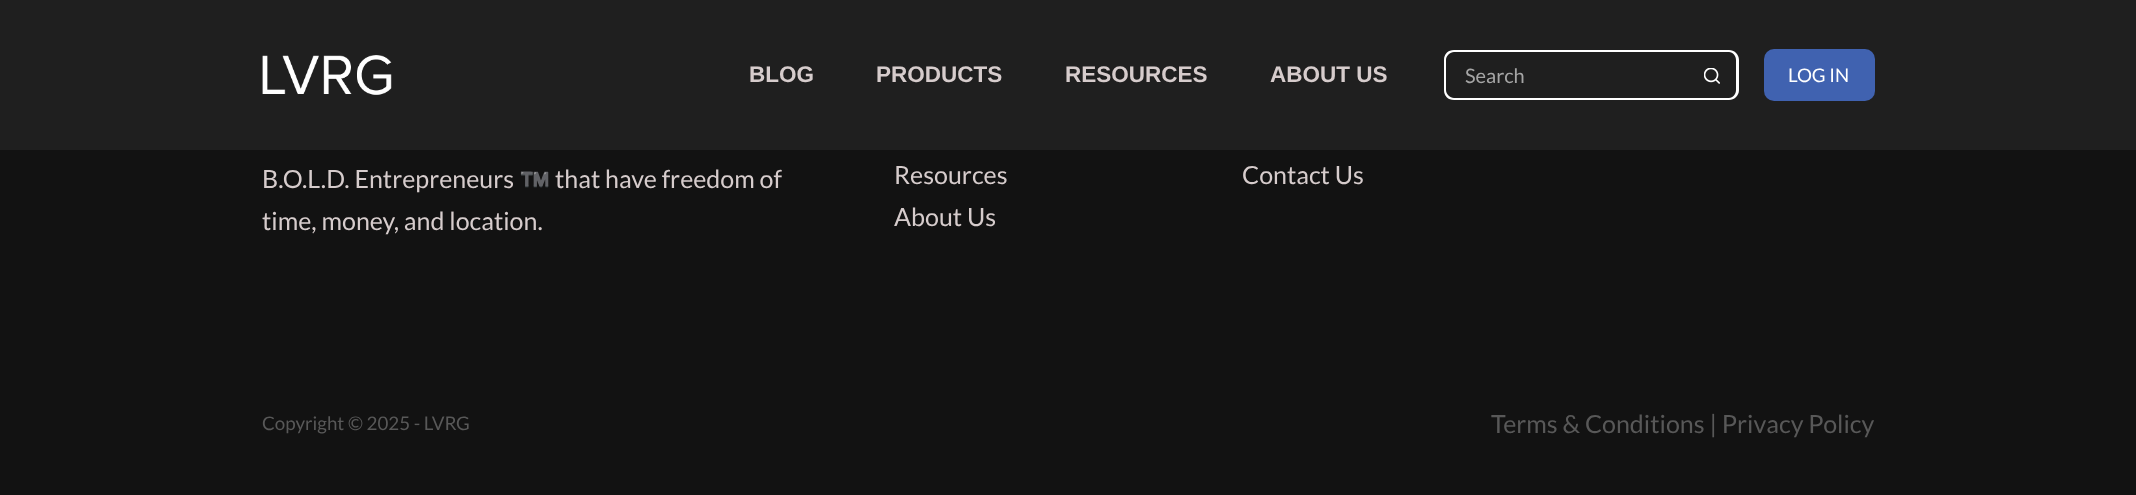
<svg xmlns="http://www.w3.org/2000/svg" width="2136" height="495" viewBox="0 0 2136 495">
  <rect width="100%" height="100%" fill="#121212"/>
  <path d="M0 0h2136v150H0z" fill="#1f1f1f"/>
  <image x="262" y="55" width="130" height="40" href="img/1.png"/>
  <path d="M1454 50H1689V100H1454C1448 100 1444 96 1444 90V60C1444 54 1448 50 1454 50ZM1454 52H1689V98H1454C1450 98 1446 94 1446 90V60C1446 56 1450 52 1454 52Z" fill="#fff" fill-rule="evenodd"/>
  <path d="M1689 50H1729C1734 50 1739 54 1739 60V90C1739 96 1734 100 1729 100H1689ZM1689 52H1729C1733 52 1736 56 1736 60V90C1736 94 1733 98 1729 98H1689Z" fill="#fff" fill-rule="evenodd"/>
  <image x="1704" y="68" width="16" height="16" href="img/2.png"/>
  <rect x="1764" y="49" width="111" height="52" rx="10" fill="#4062b0"/>
  <g font-family="Liberation Sans" font-size="22.5" font-weight="bold" fill="#d6cccc">
    <text x="749" y="82">BLOG</text>
    <text x="876" y="82">PRODUCTS</text>
    <text x="1065" y="82">RESOURCES</text>
    <text x="1270" y="82">ABOUT US</text>
  </g>
  <text x="1465" y="83" font-family="Lato" font-size="20" fill="#a5a5a5">Search</text>
  <text x="1788" y="82" font-family="Lato" font-size="18.75" fill="#fff">LOG IN</text>
  <text x="262" y="188" font-family="Lato" font-size="25" fill="#d6cccc">B.O.L.D. Entrepreneurs</text>
  <text x="519" y="188" font-family="Noto Color Emoji" font-size="25" fill="#d6cccc">™️</text>
  <g font-family="Lato" font-size="25" fill="#d6cccc">
    <text x="555" y="188">that have freedom of</text>
    <text x="262" y="230">time, money, and location.</text>
    <text x="894" y="184">Resources</text>
    <text x="894" y="226">About Us</text>
    <text x="1242" y="184">Contact Us</text>
  </g>
  <text x="262" y="430" font-family="Lato" font-size="18.75" fill="#585858">Copyright © 2025 - LVRG</text>
  <text x="1491" y="433" font-family="Lato" font-size="25" fill="#585858">Terms &amp; Conditions | Privacy Policy</text>
</svg>
